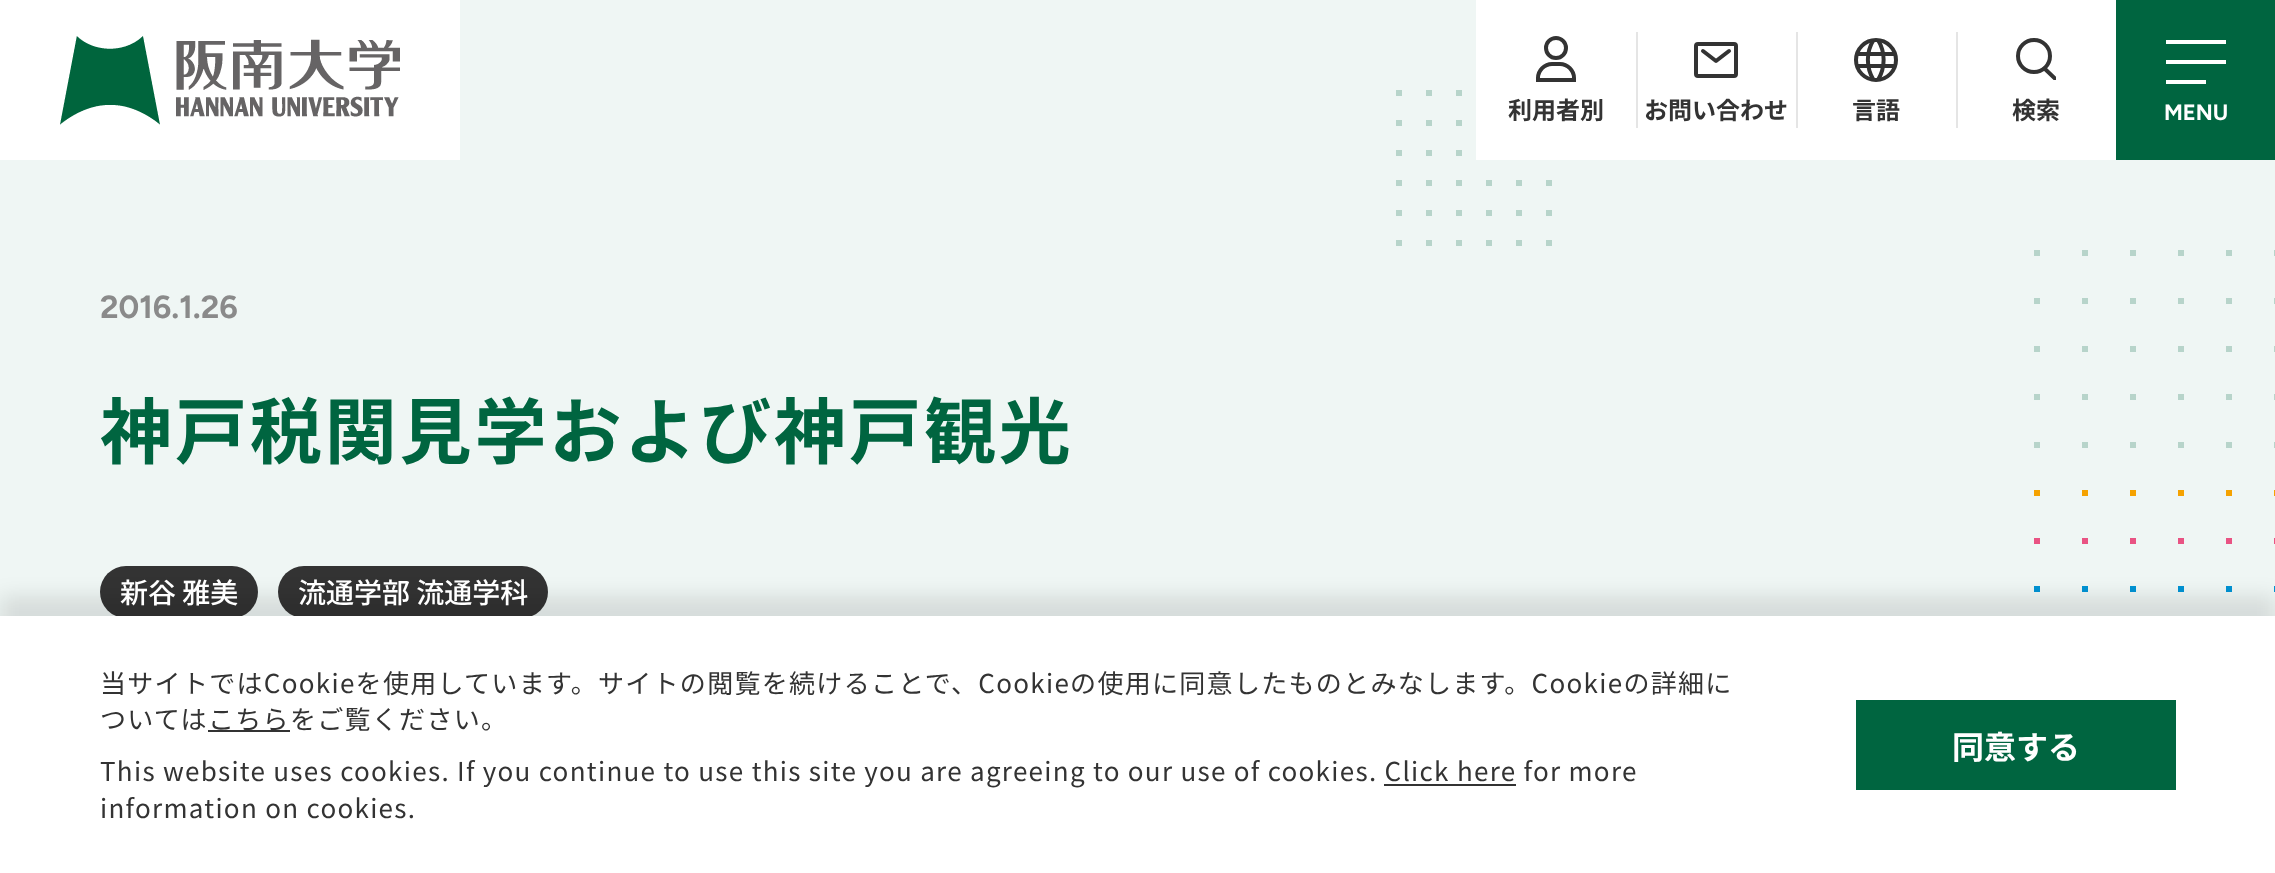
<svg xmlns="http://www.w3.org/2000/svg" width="2275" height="873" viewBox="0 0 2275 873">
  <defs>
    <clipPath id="clip1"><path d="M2016 38h40v42H2016z"/></clipPath>
  </defs>
  <rect width="100%" height="100%" fill="#eff6f4"/>
  <image x="0" y="0" width="460" height="160" href="img/1.png"/>
  <image x="1396" y="90" width="156" height="156" href="img/2.png"/>
  <path d="M1476 0h640v160H1476z" fill="#fff"/>
  <circle cx="1556" cy="48" r="10" fill="none" stroke="#333" stroke-width="4"/>
  <path d="M1552 64H1560C1567.5 64 1574 70.5 1574 78V80H1538V78C1538 70.5 1544.5 64 1552 64Z" fill="none" stroke="#333" stroke-width="4"/>
  <path d="M1636 32h2v96H1636z" fill="#e5e5e5"/>
  <rect x="1696" y="44" width="40" height="32" rx="2" fill="none" stroke="#333" stroke-width="4"/>
  <path d="M1703 51L1716 61L1729 51" fill="none" stroke="#333" stroke-width="4" stroke-linecap="round" stroke-linejoin="round"/>
  <path d="M1796 32h2v96H1796z" fill="#e5e5e5"/>
  <circle cx="1876" cy="60" r="20" fill="none" stroke="#333" stroke-width="4"/>
  <path d="M1857 52h38v4H1857z" fill="#333"/>
  <path d="M1857 64h38v4H1857z" fill="#333"/>
  <path d="M1873.5 40C1866 52 1866 67.5 1873.5 80M1878 40C1885.5 52 1885.5 67.5 1878 80" fill="none" stroke="#333" stroke-width="4"/>
  <path d="M1956 32h2v96H1956z" fill="#e5e5e5"/>
  <circle cx="2034" cy="56" r="16" fill="none" stroke="#333" stroke-width="4"/>
  <g clip-path="url(#clip1)">
    <path d="M2044.5 68.5L2055 78.5" fill="none" stroke="#333" stroke-width="4" stroke-linecap="round"/>
  </g>
  <path d="M2116 0h159v160H2116z" fill="#006540"/>
  <path d="M2166 40h60v4H2166z" fill="#fff"/>
  <path d="M2166 60h60v4H2166z" fill="#fff"/>
  <path d="M2166 80h40v4H2166z" fill="#fff"/>
  <image x="2034" y="250" width="241" height="342" href="img/3.png"/>
  <rect x="100" y="566" width="158" height="52" rx="26" fill="#333"/>
  <rect x="278" y="566" width="270" height="52" rx="26" fill="#333"/>
  <path d="M0 596h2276v258H0z" fill="#0000001a" filter="blur(10px)"/>
  <path d="M0 616h2275v257H0z" fill="#fff"/>
  <path d="M208 730h82v2H208z" fill="#333"/>
  <path d="M1384 784h132v2H1384z" fill="#333"/>
  <path d="M1856 700h320v90H1856z" fill="#006540"/>
  <g font-family="Noto Sans JP" font-size="24" font-weight="bold" fill="#333">
    <text x="1508" y="119">利用者別</text>
    <text x="1644" y="119">お問い合わせ</text>
    <text x="1852" y="119">言語</text>
    <text x="2012" y="119">検索</text>
  </g>
  <text x="2164" y="120" font-family="Figtree" font-size="22" font-weight="bold" fill="#fff">MENU</text>
  <text x="100" y="318" font-family="Figtree" font-size="32" font-weight="bold" fill="#8a8a8a">2016.1.26</text>
  <text x="100" y="458" font-family="Noto Sans JP" font-size="72" font-weight="bold" letter-spacing="2.9" fill="#006540">神戸税関見学および神戸観光</text>
  <g font-family="Noto Sans JP" font-size="28" font-weight="500" fill="#fff">
    <text x="120" y="603">新谷 雅美</text>
    <text x="298" y="603">流通学部 流通学科</text>
  </g>
  <g font-family="Noto Sans JP" font-size="26" letter-spacing="1.3" fill="#333">
    <text x="100" y="693">当サイトではCookieを使用しています。サイトの閲覧を続けることで、Cookieの使用に同意したものとみなします。Cookieの詳細に</text>
    <text x="100" y="729">ついては</text>
    <text x="208" y="729">こちらをご覧ください。</text>
    <text x="100" y="781">This website uses cookies. If you continue to use this site you are agreeing to our use of cookies. Click here for more</text>
    <text x="100" y="818">information on cookies.</text>
  </g>
  <text x="1952" y="759" font-family="Noto Sans JP" font-size="32" font-weight="bold" fill="#fff">同意する</text>
</svg>
